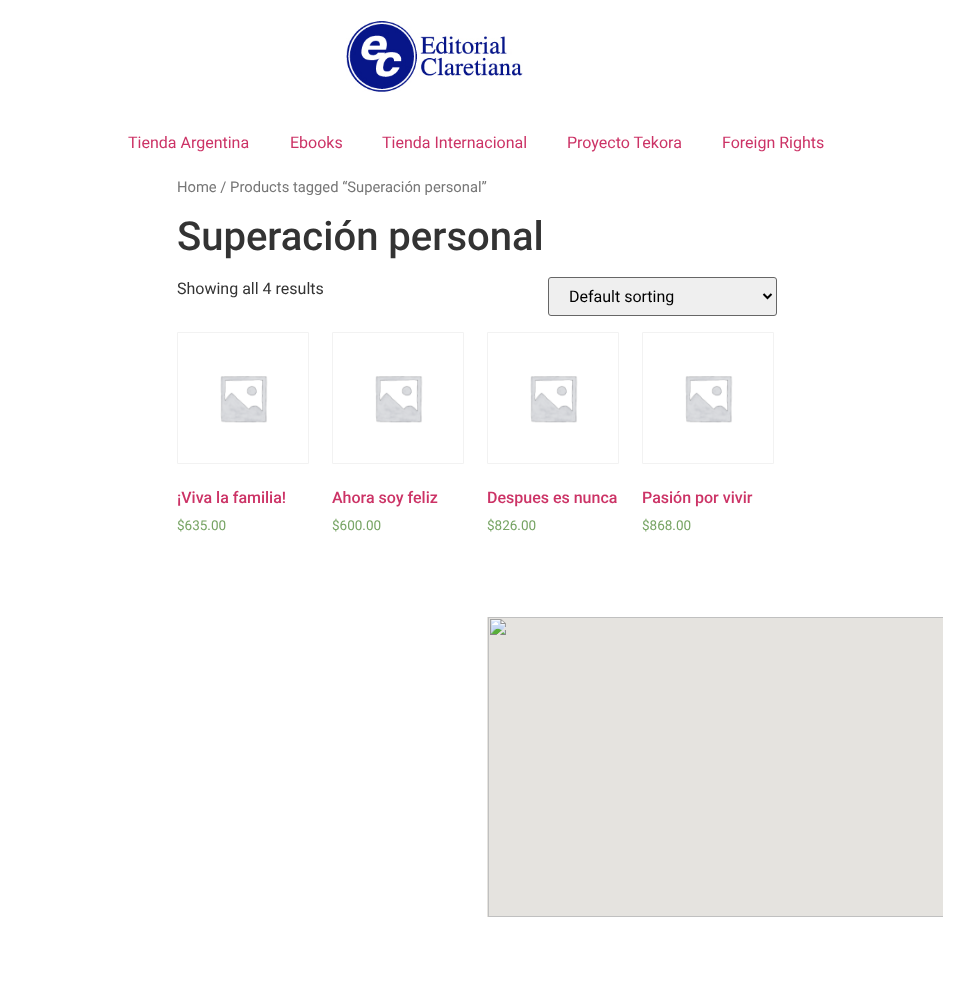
<svg xmlns="http://www.w3.org/2000/svg" width="953" height="998" viewBox="0 0 953 998">
  <rect width="100%" height="100%" fill="#fff"/>
  <image x="346" y="21" width="177" height="71" href="img/1.png"/>
  <rect x="548.5" y="277.5" width="228" height="38" rx="2.5" fill="#efefef" stroke="#666"/>
  <path d="M763.5 294L767.5 298L771.5 294" fill="none" stroke="#000" stroke-width="2"/>
  <path d="M177.5 332.5h131v131H177.5z" fill="none" stroke="#f2f2f2"/>
  <image x="220" y="376" width="48" height="47" href="img/2.png"/>
  <path d="M332.5 332.5h131v131H332.5z" fill="none" stroke="#f2f2f2"/>
  <image x="375" y="376" width="48" height="47" href="img/2.png"/>
  <path d="M487.5 332.5h131v131H487.5z" fill="none" stroke="#f2f2f2"/>
  <image x="530" y="376" width="48" height="47" href="img/3.png"/>
  <path d="M642.5 332.5h131v131H642.5z" fill="none" stroke="#f2f2f2"/>
  <image x="685" y="376" width="48" height="47" href="img/2.png"/>
  <image x="487" y="617" width="456" height="300" href="img/4.png"/>
  <g font-family="Roboto" font-size="16" fill="#c36">
    <text x="128" y="148">Tienda Argentina</text>
    <text x="290" y="148">Ebooks</text>
    <text x="382" y="148">Tienda Internacional</text>
    <text x="567" y="148">Proyecto Tekora</text>
    <text x="722" y="148">Foreign Rights</text>
  </g>
  <text x="177" y="192" font-family="Roboto" font-size="14.75" fill="#767676">Home / Products tagged “Superación personal”</text>
  <text x="177" y="250" font-family="Roboto" font-size="40" font-weight="500" fill="#333">Superación personal</text>
  <text x="177" y="294" font-family="Roboto" font-size="16" fill="#333">Showing all 4 results</text>
  <text x="569" y="302" font-family="Roboto" font-size="16" fill="#000">Default sorting</text>
  <text x="177" y="503" font-family="Roboto" font-size="16" font-weight="500" fill="#c36">¡Viva la familia!</text>
  <text x="177" y="530" font-family="Roboto" font-size="13.5" fill="#77a464">$635.00</text>
  <text x="332" y="503" font-family="Roboto" font-size="16" font-weight="500" fill="#c36">Ahora soy feliz</text>
  <text x="332" y="530" font-family="Roboto" font-size="13.5" fill="#77a464">$600.00</text>
  <text x="487" y="503" font-family="Roboto" font-size="16" font-weight="500" fill="#c36">Despues es nunca</text>
  <text x="487" y="530" font-family="Roboto" font-size="13.5" fill="#77a464">$826.00</text>
  <text x="642" y="503" font-family="Roboto" font-size="16" font-weight="500" fill="#c36">Pasión por vivir</text>
  <text x="642" y="530" font-family="Roboto" font-size="13.5" fill="#77a464">$868.00</text>
</svg>
